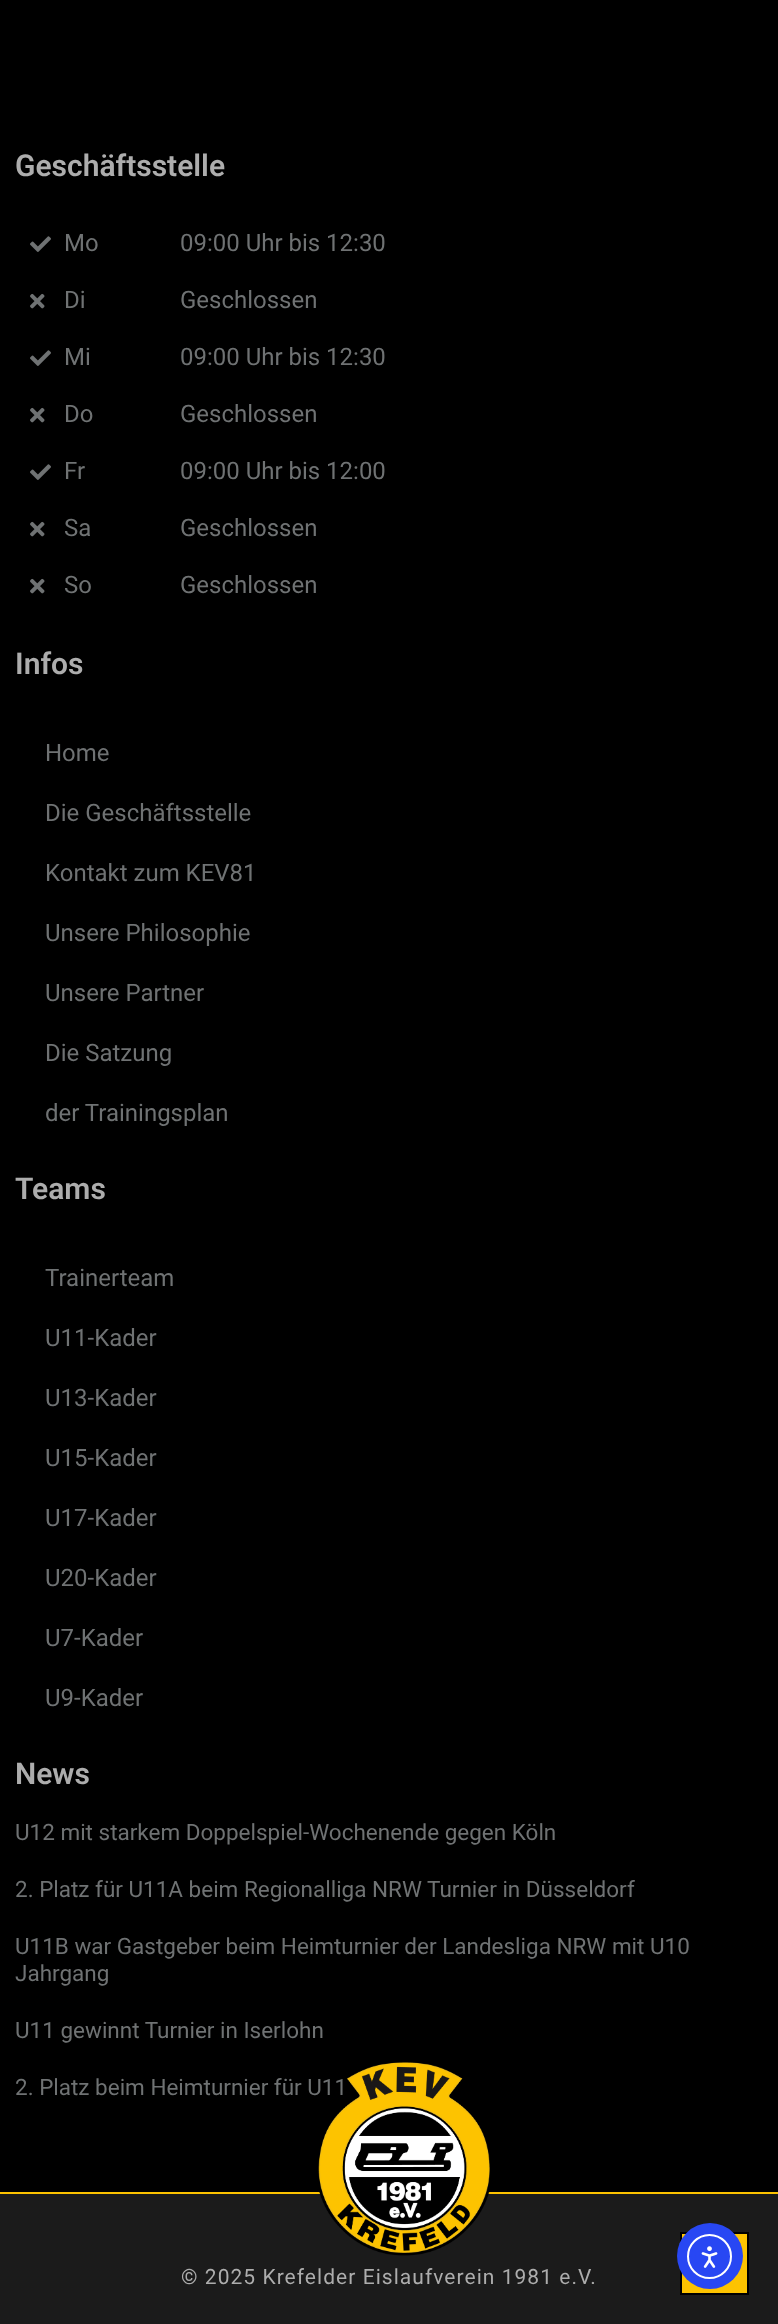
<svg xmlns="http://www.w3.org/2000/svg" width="778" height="2324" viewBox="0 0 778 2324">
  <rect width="100%" height="100%" fill="#000"/>
  <image x="30" y="236" width="21" height="16" href="img/1.png"/>
  <image x="30" y="293" width="15" height="16" href="img/2.png"/>
  <image x="30" y="350" width="21" height="16" href="img/1.png"/>
  <image x="30" y="407" width="15" height="16" href="img/2.png"/>
  <image x="30" y="464" width="21" height="16" href="img/1.png"/>
  <image x="30" y="521" width="15" height="16" href="img/2.png"/>
  <image x="30" y="578" width="15" height="16" href="img/2.png"/>
  <path d="M0 2194h778v130H0z" fill="#1b1b1b"/>
  <path d="M681 2233h67v61H681z" fill="#fdc300" stroke="#000" stroke-width="2"/>
  <path d="M0 2192h778v2H0z" fill="#fdc300"/>
  <circle cx="710" cy="2256" r="33" fill="#2847f3"/>
  <circle cx="709.5" cy="2256.5" r="21.5" fill="none" stroke="#fff" stroke-width="2"/>
  <image x="701" y="2246" width="17" height="22" href="img/4.png"/>
  <text x="15" y="176" font-family="Roboto" font-size="30" font-weight="600" fill="#adadad">Geschäftsstelle</text>
  <g font-family="Roboto" font-size="24" fill="#6f7273">
    <text x="64" y="251">Mo</text>
    <text x="64" y="308">Di</text>
    <text x="64" y="365">Mi</text>
    <text x="64" y="422">Do</text>
    <text x="64" y="479">Fr</text>
    <text x="64" y="536">Sa</text>
    <text x="64" y="593">So</text>
    <text x="180" y="251">09:00 Uhr bis 12:30</text>
    <text x="180" y="308">Geschlossen</text>
    <text x="180" y="365">09:00 Uhr bis 12:30</text>
    <text x="180" y="422">Geschlossen</text>
    <text x="180" y="479">09:00 Uhr bis 12:00</text>
    <text x="180" y="536">Geschlossen</text>
    <text x="180" y="593">Geschlossen</text>
  </g>
  <text x="15" y="674" font-family="Roboto" font-size="30" font-weight="600" fill="#adadad">Infos</text>
  <g font-family="Roboto" font-size="24" fill="#6f7273">
    <text x="45" y="761">Home</text>
    <text x="45" y="821">Die Geschäftsstelle</text>
    <text x="45" y="881">Kontakt zum KEV81</text>
    <text x="45" y="941">Unsere Philosophie</text>
    <text x="45" y="1001">Unsere Partner</text>
    <text x="45" y="1061">Die Satzung</text>
    <text x="45" y="1121">der Trainingsplan</text>
  </g>
  <text x="15" y="1199" font-family="Roboto" font-size="30" font-weight="600" fill="#adadad">Teams</text>
  <g font-family="Roboto" font-size="24" fill="#6f7273">
    <text x="45" y="1286">Trainerteam</text>
    <text x="45" y="1346">U11-Kader</text>
    <text x="45" y="1406">U13-Kader</text>
    <text x="45" y="1466">U15-Kader</text>
    <text x="45" y="1526">U17-Kader</text>
    <text x="45" y="1586">U20-Kader</text>
    <text x="45" y="1646">U7-Kader</text>
    <text x="45" y="1706">U9-Kader</text>
  </g>
  <text x="15" y="1784" font-family="Roboto" font-size="30" font-weight="600" fill="#adadad">News</text>
  <g font-family="Roboto" font-size="22.5" fill="#6f7273">
    <text x="15" y="1840">U12 mit starkem Doppelspiel-Wochenende gegen Köln</text>
    <text x="15" y="1897">2. Platz für U11A beim Regionalliga NRW Turnier in Düsseldorf</text>
    <text x="15" y="1954">U11B war Gastgeber beim Heimturnier der Landesliga NRW mit U10</text>
    <text x="15" y="1981">Jahrgang</text>
    <text x="15" y="2038">U11 gewinnt Turnier in Iserlohn</text>
    <text x="15" y="2095">2. Platz beim Heimturnier für U11</text>
  </g>
  <image x="318" y="2062" width="172" height="194" href="img/3.png"/>
  <text x="181" y="2284" font-family="Roboto" font-size="21" letter-spacing="1.05" fill="#adadad">© 2025 Krefelder Eislaufverein 1981 e.V.</text>
</svg>
